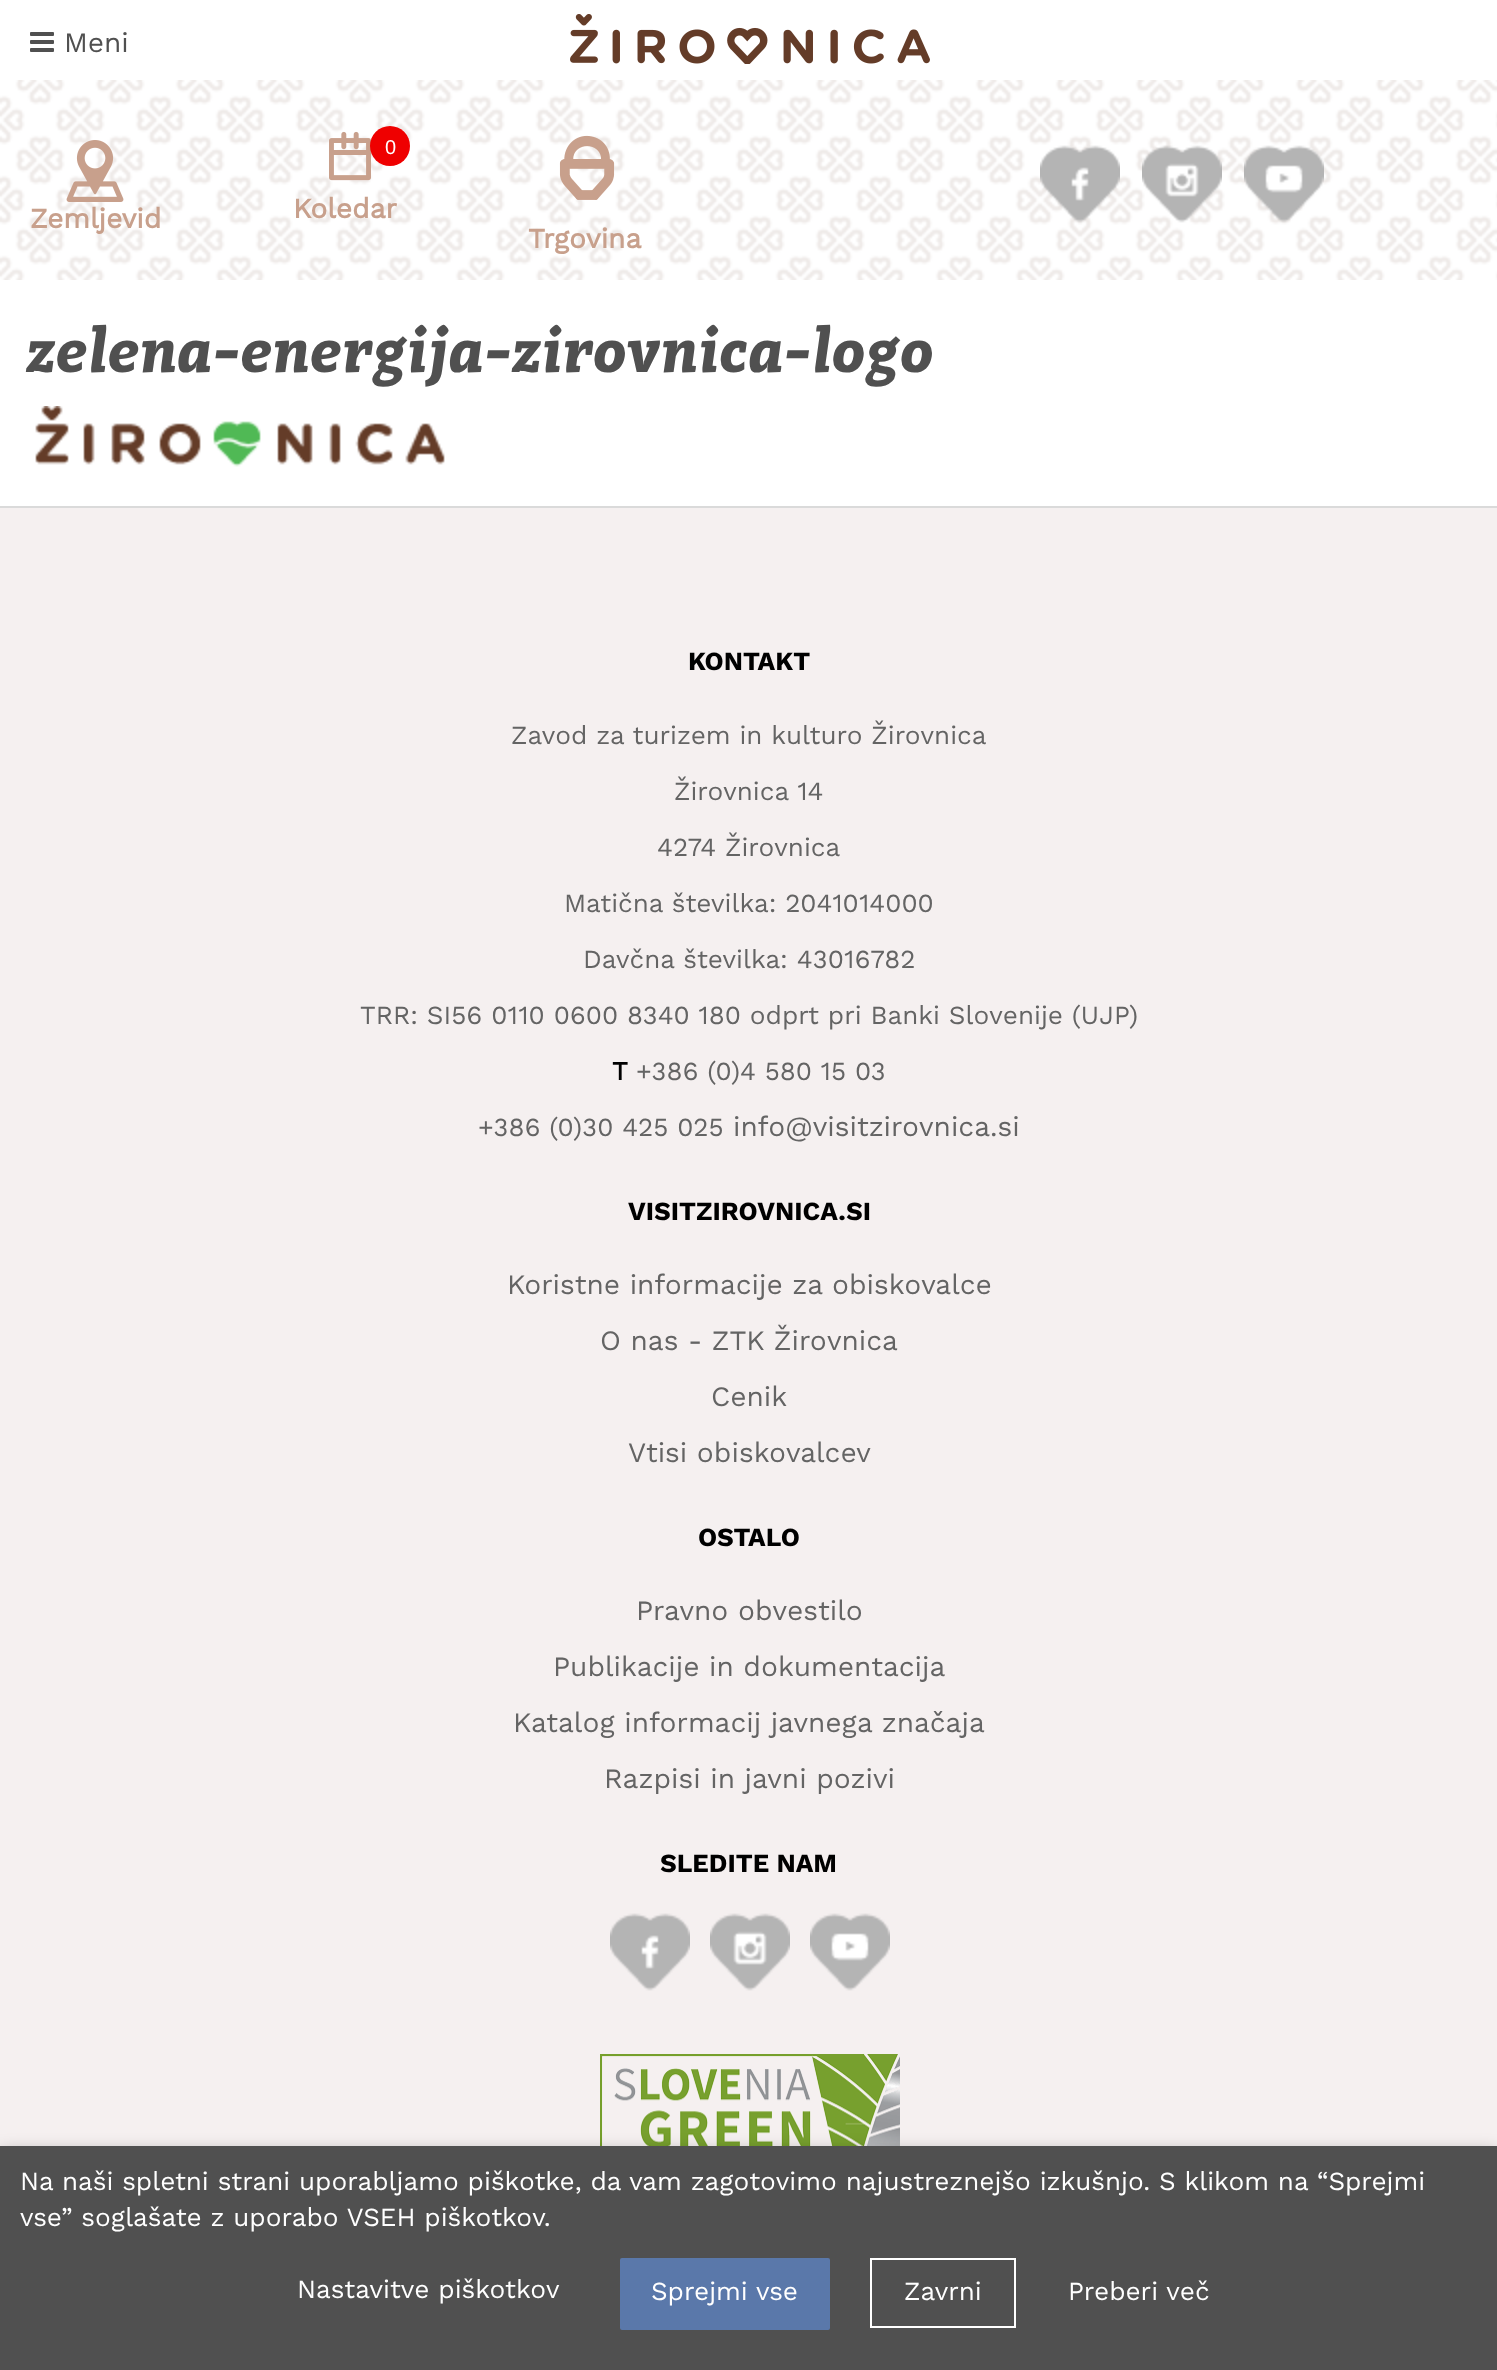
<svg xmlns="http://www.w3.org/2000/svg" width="1497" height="2370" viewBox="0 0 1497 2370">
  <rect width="100%" height="100%" fill="#fff"/>
  <image x="30" y="32" width="24" height="20" href="img/1.png"/>
  <image x="570" y="14" width="360" height="50" href="img/2.png"/>
  <image x="0" y="80" width="1497" height="200" href="img/3.png"/>
  <image x="66" y="140" width="58" height="62" href="img/4.png"/>
  <image x="329" y="131" width="42" height="50" href="img/5.png"/>
  <circle cx="390" cy="146" r="20" fill="#ef0000"/>
  <image x="559" y="135" width="56" height="65" href="img/6.png"/>
  <image x="1040" y="145" width="80" height="78" href="img/7.png"/>
  <image x="1142" y="145" width="80" height="78" href="img/8.png"/>
  <image x="1244" y="145" width="80" height="78" href="img/9.png"/>
  <image x="35" y="406" width="410" height="61" href="img/10.png"/>
  <path d="M0 506h1497v2H0z" fill="#dadada"/>
  <path d="M0 508h1497v1638H0z" fill="#f5f0f0"/>
  <image x="610" y="1913" width="80" height="78" href="img/11.png"/>
  <image x="710" y="1913" width="80" height="78" href="img/12.png"/>
  <image x="810" y="1913" width="80" height="78" href="img/13.png"/>
  <image x="600" y="2054" width="300" height="92" href="img/14.png"/>
  <path d="M0 2156h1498v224H0z" fill="#00000080" filter="blur(10px)"/>
  <path d="M0 2146h1497v224H0z" fill="#505050"/>
  <rect x="620" y="2258" width="210" height="72" rx="2" fill="#5a78aa"/>
  <path d="M871 2259h144v68H871z" fill="none" stroke="#fff" stroke-width="2"/>
  <text x="64" y="52" font-family="Work Sans" font-size="28" fill="#505050">Meni</text>
  <text x="30" y="228" font-family="'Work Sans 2'" font-size="28" font-weight="bold" fill="#c8a08c">Zemljevid</text>
  <text x="385" y="154" font-family="Liberation Sans" font-size="20" fill="#fff">0</text>
  <g font-family="'Work Sans 2'" font-size="28" font-weight="bold" fill="#c8a08c">
    <text x="293" y="218">Koledar</text>
    <text x="528" y="248">Trgovina</text>
  </g>
  <text x="30" y="372" font-family="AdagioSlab" font-size="60" font-weight="bold" font-style="italic" fill="#505050">zelena-energija-zirovnica-logo</text>
  <text x="688" y="670" font-family="Work Sans" font-size="26" font-weight="bold" fill="#000">KONTAKT</text>
  <g font-family="Work Sans" font-size="26" fill="#646464">
    <text x="511" y="744">Zavod za turizem in kulturo Žirovnica</text>
    <text x="674" y="800">Žirovnica 14</text>
    <text x="657" y="856">4274 Žirovnica</text>
    <text x="564" y="912">Matična številka: 2041014000</text>
    <text x="583" y="968">Davčna številka: 43016782</text>
    <text x="360" y="1024">TRR: SI56 0110 0600 8340 180 odprt pri Banki Slovenije (UJP)</text>
  </g>
  <text x="612" y="1080" font-family="'Work Sans 2'" font-size="26" font-weight="bold" fill="#000">T</text>
  <g font-family="Work Sans" font-size="26" fill="#646464">
    <text x="636" y="1080">+386 (0)4 580 15 03</text>
    <text x="478" y="1136">+386 (0)30 425 025</text>
  </g>
  <text x="733" y="1136" font-family="Work Sans" font-size="28" fill="#646464">info@visitzirovnica.si</text>
  <text x="628" y="1220" font-family="Work Sans" font-size="26" font-weight="bold" fill="#000">VISITZIROVNICA.SI</text>
  <g font-family="Work Sans" font-size="28" fill="#646464">
    <text x="507" y="1294">Koristne informacije za obiskovalce</text>
    <text x="600" y="1350">O nas - ZTK Žirovnica</text>
    <text x="711" y="1406">Cenik</text>
    <text x="628" y="1462">Vtisi obiskovalcev</text>
  </g>
  <text x="698" y="1546" font-family="Work Sans" font-size="26" font-weight="bold" fill="#000">OSTALO</text>
  <g font-family="Work Sans" font-size="28" fill="#646464">
    <text x="636" y="1620">Pravno obvestilo</text>
    <text x="553" y="1676">Publikacije in dokumentacija</text>
    <text x="513" y="1732">Katalog informacij javnega značaja</text>
    <text x="604" y="1788">Razpisi in javni pozivi</text>
  </g>
  <text x="660" y="1872" font-family="Work Sans" font-size="26" font-weight="bold" fill="#000">SLEDITE NAM</text>
  <g font-family="Work Sans" font-size="26" fill="#fff">
    <text x="20" y="2190">Na naši spletni strani uporabljamo piškotke, da vam zagotovimo najustreznejšo izkušnjo. S klikom na “Sprejmi</text>
    <text x="20" y="2226">vse” soglašate z uporabo VSEH piškotkov.</text>
    <text x="297" y="2298">Nastavitve piškotkov</text>
    <text x="651" y="2300">Sprejmi vse</text>
    <text x="904" y="2300">Zavrni</text>
    <text x="1068" y="2300">Preberi več</text>
  </g>
</svg>
